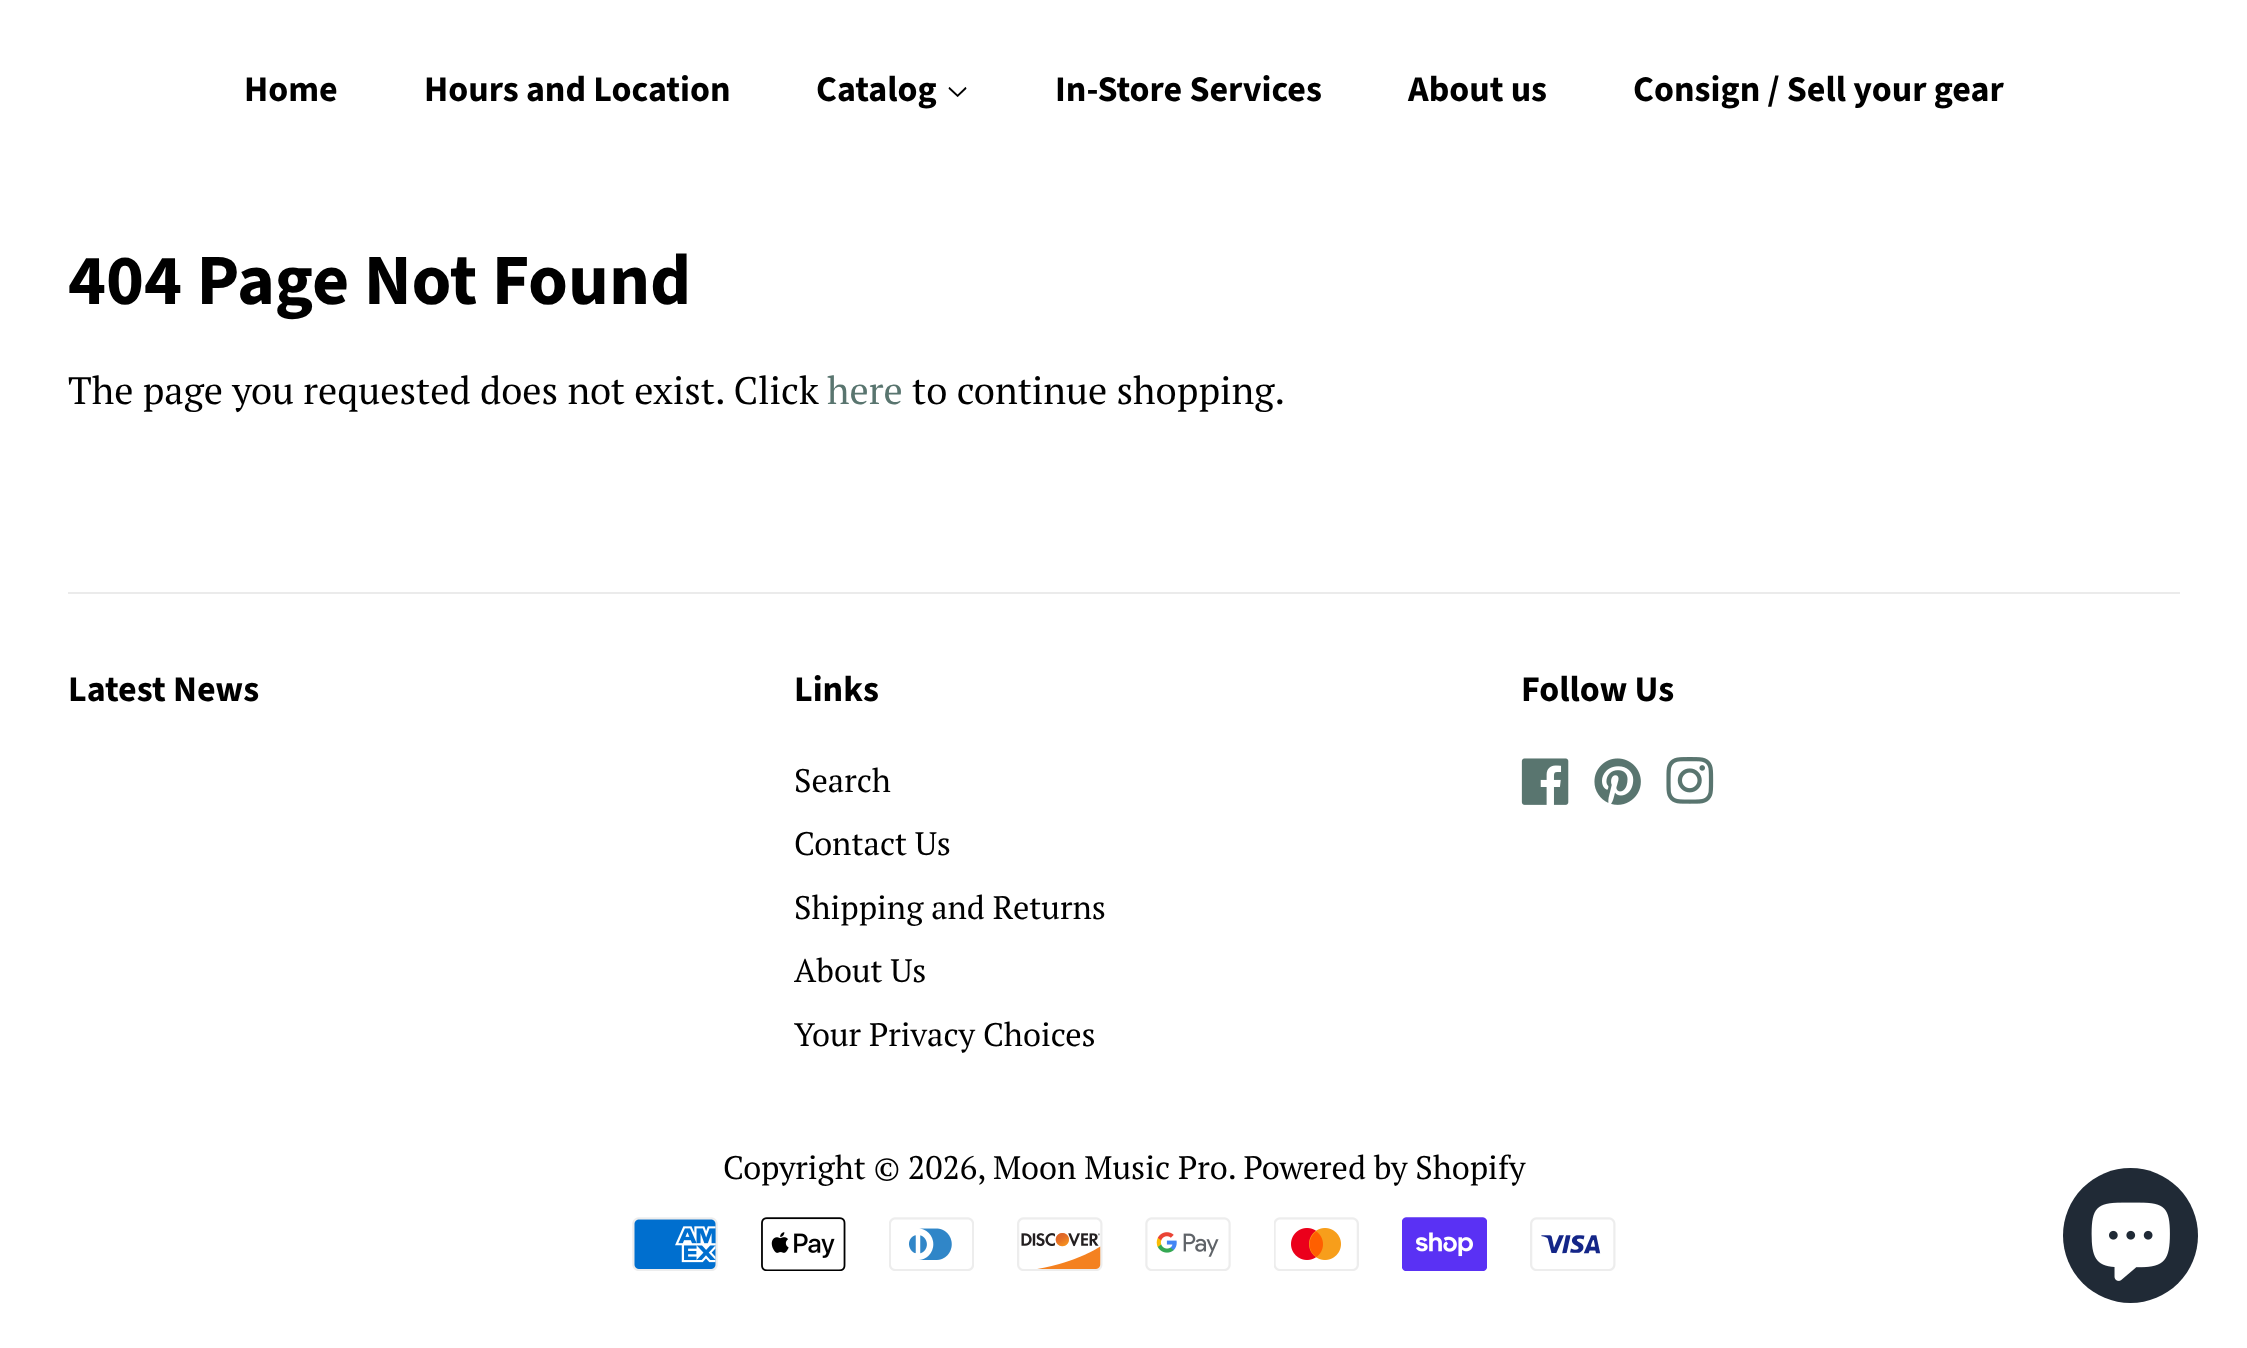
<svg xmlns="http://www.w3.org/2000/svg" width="2247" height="1348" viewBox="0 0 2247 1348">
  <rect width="100%" height="100%" fill="#fff"/>
  <image x="948" y="87" width="19" height="10" href="img/1.png"/>
  <path d="M68 592h2112v2H68z" fill="#ebebeb"/>
  <image x="1521" y="758" width="48" height="47" href="img/2.png"/>
  <image x="1594" y="758" width="47" height="47" href="img/3.png"/>
  <image x="1666" y="757" width="48" height="47" href="img/4.png"/>
  <image x="632" y="1217" width="86" height="54" href="img/5.png"/>
  <image x="761" y="1217" width="85" height="54" href="img/6.png"/>
  <image x="889" y="1217" width="85" height="54" href="img/7.png"/>
  <image x="1017" y="1217" width="86" height="54" href="img/8.png"/>
  <image x="1145" y="1217" width="86" height="54" href="img/9.png"/>
  <image x="1274" y="1217" width="85" height="54" href="img/10.png"/>
  <image x="1402" y="1217" width="85" height="54" href="img/11.png"/>
  <image x="1530" y="1217" width="86" height="54" href="img/12.png"/>
  <circle cx="2130.5" cy="1235.5" r="67.5" fill="#202a36"/>
  <image x="2091" y="1202" width="79" height="79" href="img/13.png"/>
  <g font-family="Source Sans Pro" font-size="36" font-weight="bold" fill="#000">
    <text x="244" y="101">Home</text>
    <text x="424" y="101">Hours and Location</text>
    <text x="816" y="101">Catalog</text>
    <text x="1055" y="101">In-Store Services</text>
    <text x="1408" y="101">About us</text>
    <text x="1633" y="101">Consign / Sell your gear</text>
  </g>
  <text x="68" y="304" font-family="Source Sans Pro" font-size="72" font-weight="bold" fill="#000">404 Page Not Found</text>
  <text x="68" y="404" font-family="PT Serif" font-size="38.25" fill="#000">The page you requested does not exist. Click</text>
  <text x="827" y="404" font-family="PT Serif" font-size="38.25" fill="#59756f">here</text>
  <text x="912" y="404" font-family="PT Serif" font-size="38.25" fill="#000">to continue shopping.</text>
  <g font-family="Source Sans Pro" font-size="36" font-weight="bold" fill="#000">
    <text x="68" y="701">Latest News</text>
    <text x="794" y="701">Links</text>
  </g>
  <g font-family="PT Serif" font-size="32.5" fill="#000">
    <text x="794" y="792">Search</text>
    <text x="794" y="855">Contact Us</text>
    <text x="794" y="919">Shipping and Returns</text>
    <text x="794" y="982">About Us</text>
    <text x="794" y="1046">Your Privacy Choices</text>
  </g>
  <text x="1521" y="701" font-family="Source Sans Pro" font-size="36" font-weight="bold" fill="#000">Follow Us</text>
  <text x="723" y="1179" font-family="PT Serif" font-size="32.5" fill="#000">Copyright © 2026, Moon Music Pro. Powered by Shopify</text>
</svg>
